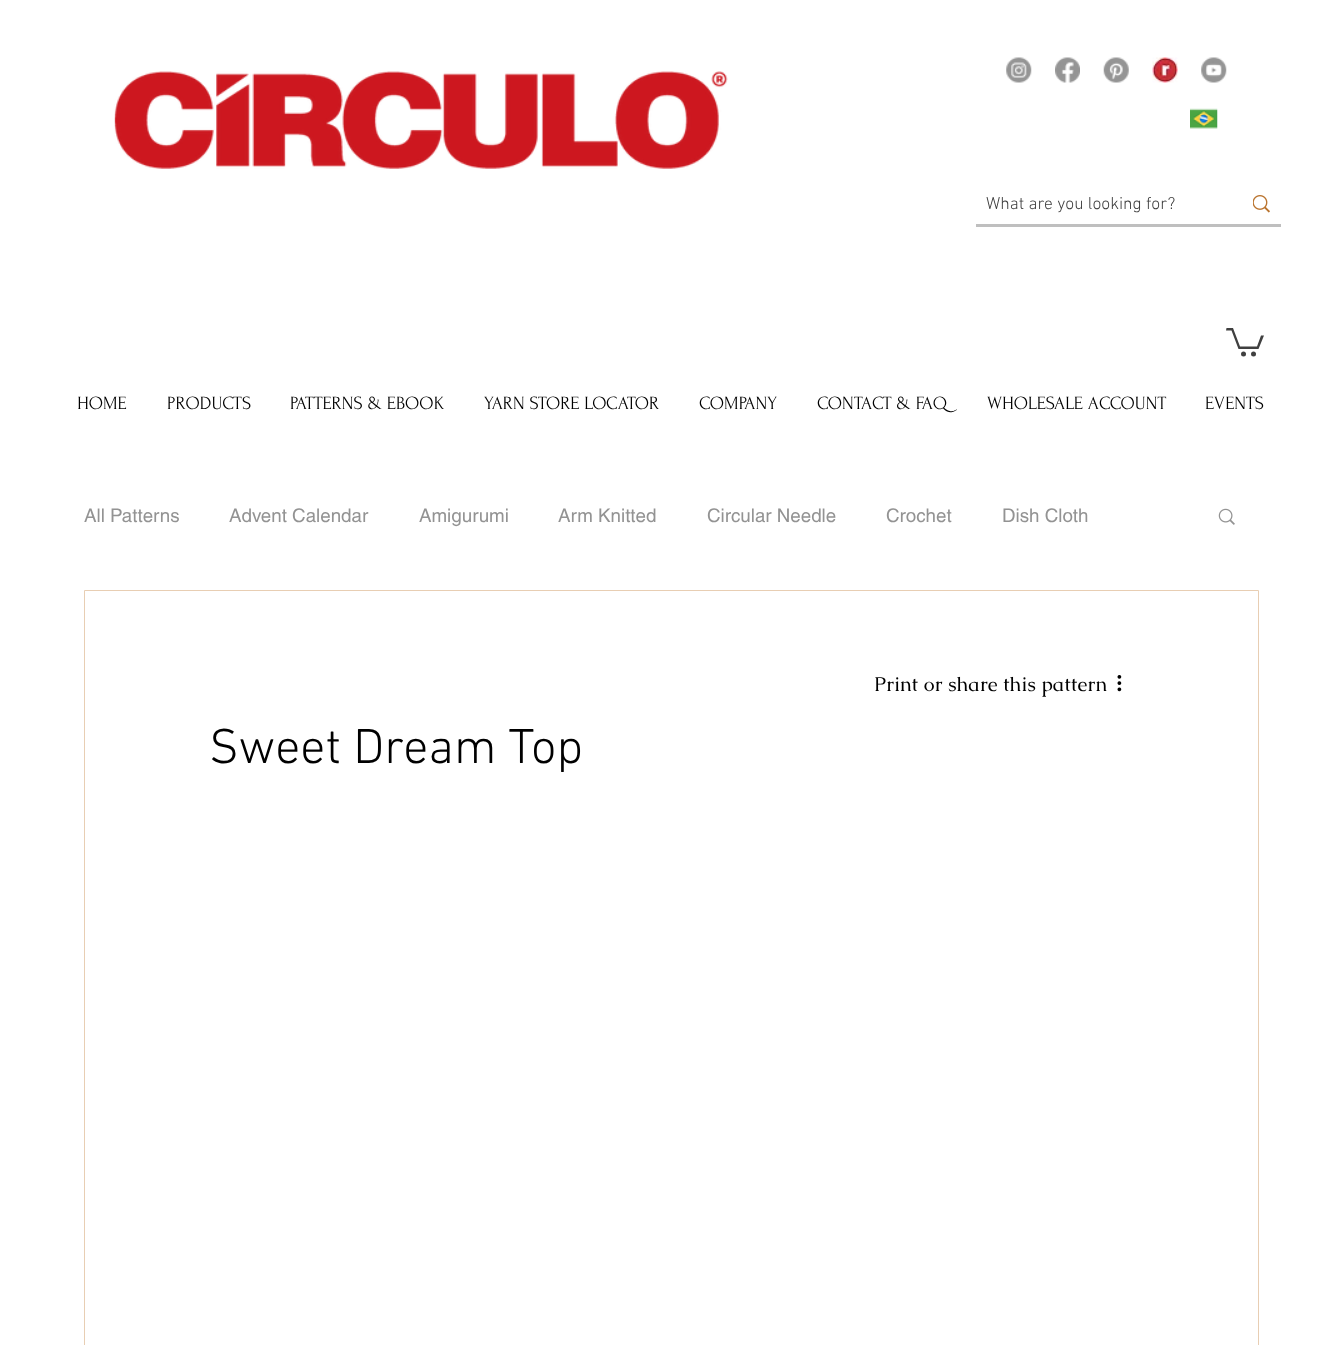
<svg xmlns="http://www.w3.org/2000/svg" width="1342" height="1345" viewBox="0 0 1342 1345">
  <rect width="100%" height="100%" fill="#fff"/>
  <image x="114" y="71" width="614" height="98" href="img/1.png"/>
  <image x="1006" y="57" width="26" height="26" href="img/2.png"/>
  <image x="1055" y="57" width="25" height="26" href="img/3.png"/>
  <image x="1103" y="57" width="26" height="26" href="img/4.png"/>
  <image x="1152" y="57" width="26" height="26" href="img/5.png"/>
  <image x="1201" y="57" width="26" height="26" href="img/6.png"/>
  <image x="1190" y="108" width="28" height="21" href="img/7.png"/>
  <path d="M976 224h305v3H976z" fill="#bfbfbf"/>
  <image x="1253" y="195" width="17" height="18" href="img/8.png"/>
  <path d="M1264 335.5L1258.5 349H1238.5L1231.5 330.5H1226L1226.5 328H1233L1240 346.5H1257L1261 335.5" fill="#404040"/>
  <circle cx="1253.5" cy="354" r="2.5" fill="#404040"/>
  <circle cx="1243.5" cy="354" r="2.5" fill="#404040"/>
  <image x="1218" y="508" width="17" height="17" href="img/9.png"/>
  <path d="M84.5 590.5h1174v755H84.5z" fill="none" stroke="#e8ceb3"/>
  <image x="1117" y="675" width="5" height="17" href="img/10.png"/>
  <text x="986" y="209" font-family="'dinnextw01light'" font-size="17.5" font-weight="300" fill="#404040">What are you looking for?</text>
  <g font-family="Forum" font-size="18.75" fill="#000">
    <text x="77" y="409">HOME</text>
    <text x="167" y="409">PRODUCTS</text>
    <text x="290" y="409">PATTERNS &amp; EBOOK</text>
    <text x="484" y="409">YARN STORE LOCATOR</text>
    <text x="699" y="409">COMPANY</text>
    <text x="817" y="409">CONTACT &amp; FAQ</text>
    <text x="987" y="409">WHOLESALE ACCOUNT</text>
    <text x="1205" y="409">EVENTS</text>
  </g>
  <g font-family="helvetica" font-size="18.75" fill="#939393">
    <text x="84" y="522">All Patterns</text>
    <text x="229" y="522">Advent Calendar</text>
    <text x="419" y="522">Amigurumi</text>
    <text x="558" y="522">Arm Knitted</text>
    <text x="707" y="522">Circular Needle</text>
    <text x="886" y="522">Crochet</text>
    <text x="1002" y="522">Dish Cloth</text>
  </g>
  <text x="209" y="763" font-family="'dinnextw01light'" font-size="50" font-weight="300" fill="#000">Sweet Dream Top</text>
  <text x="874" y="691" font-family="Caudex" font-size="20" fill="#000">Print or share this pattern</text>
</svg>
